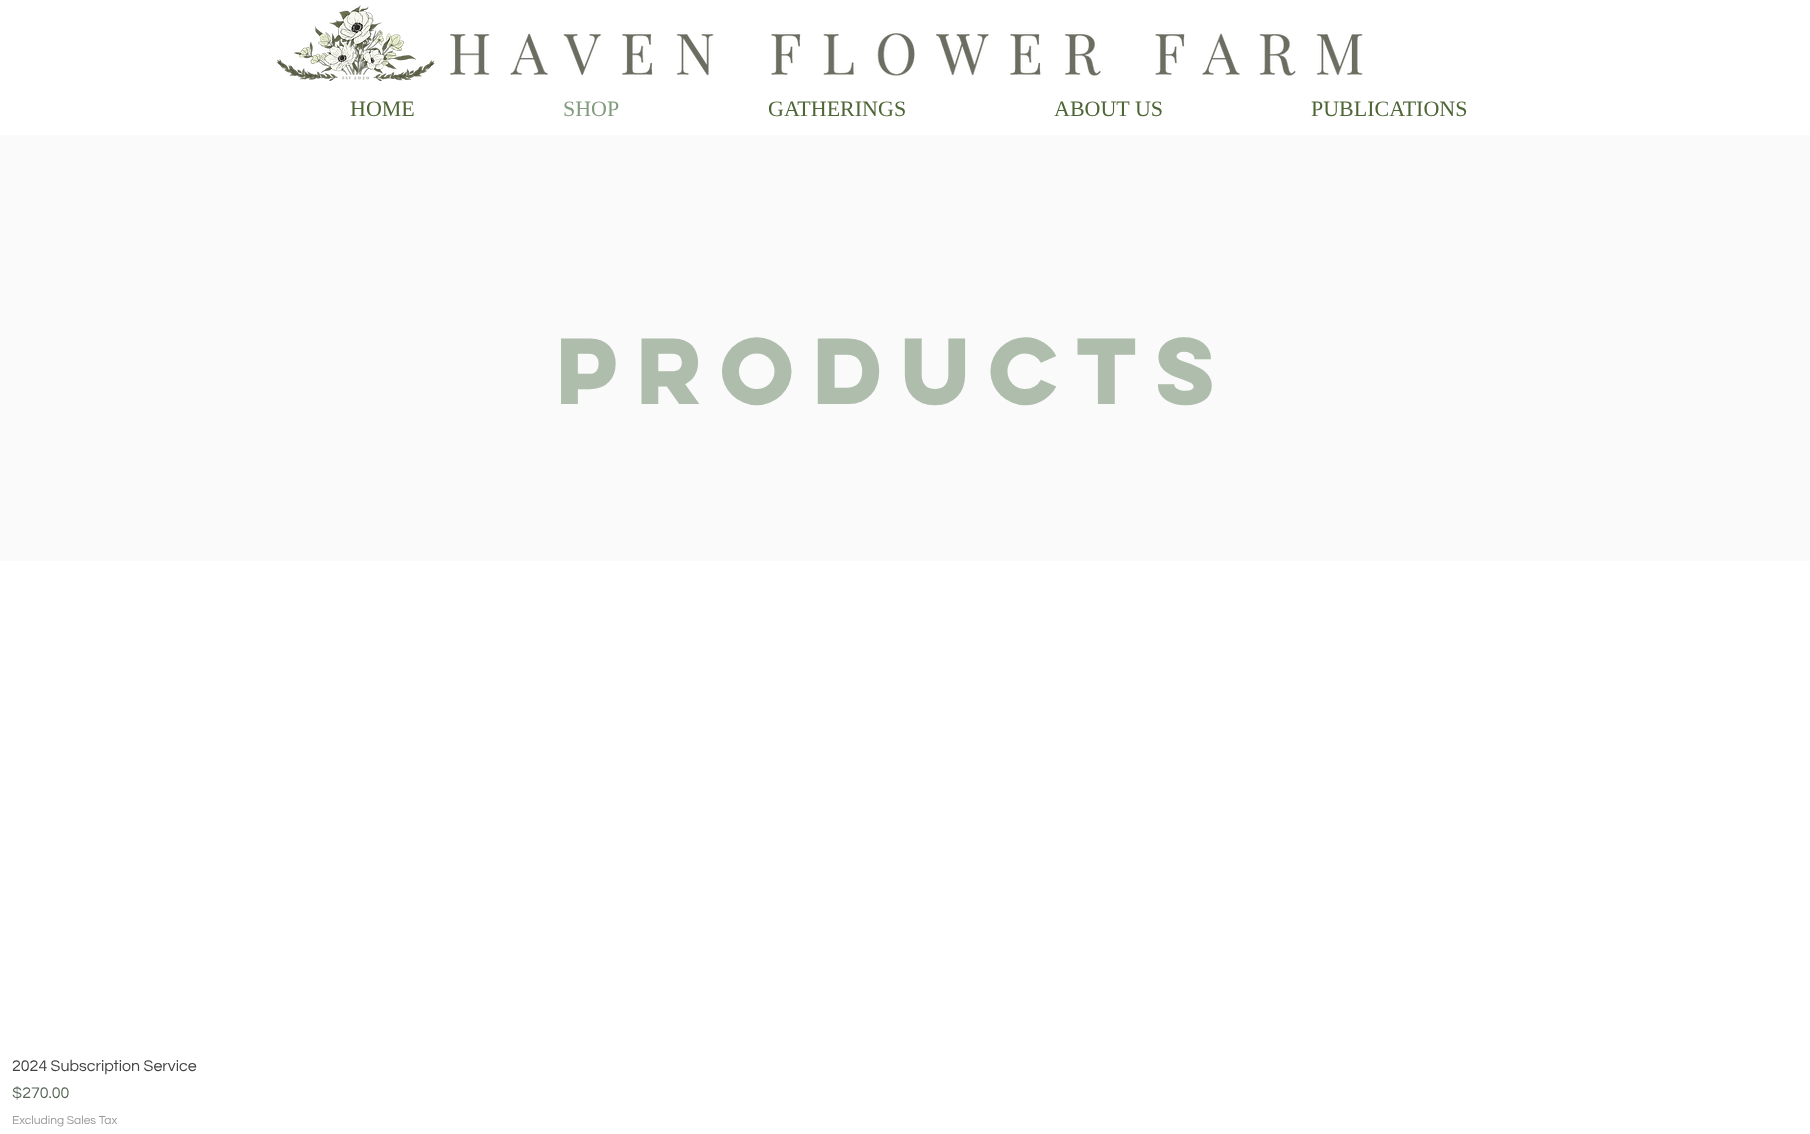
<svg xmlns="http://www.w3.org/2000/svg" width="1810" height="1134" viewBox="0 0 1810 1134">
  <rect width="100%" height="100%" fill="#fff"/>
  <image x="276" y="5" width="159" height="76" href="img/1.png"/>
  <image x="450" y="31" width="913" height="45" href="img/2.png"/>
  <path d="M0 135h1810v426H0z" fill="#fafafa"/>
  <text x="350" y="116" font-family="Liberation Serif" font-size="22" fill="#4e6636">HOME</text>
  <text x="563" y="116" font-family="Liberation Serif" font-size="22" fill="#839c80">SHOP</text>
  <g font-family="Liberation Serif" font-size="22" fill="#4e6636">
    <text x="768" y="116">GATHERINGS</text>
    <text x="1054" y="116">ABOUT US</text>
    <text x="1311" y="116">PUBLICATIONS</text>
  </g>
  <text x="556" y="404" font-family="'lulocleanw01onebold'" font-size="84" font-weight="bold" fill="#aebdac">Products</text>
  <text x="12" y="1071" font-family="Questrial" font-size="16" fill="#424242">2024 Subscription Service</text>
  <text x="12" y="1098" font-family="Questrial" font-size="16" fill="#576855">$270.00</text>
  <text x="12" y="1124" font-family="Questrial" font-size="12" fill="#999997">Excluding Sales Tax</text>
</svg>
